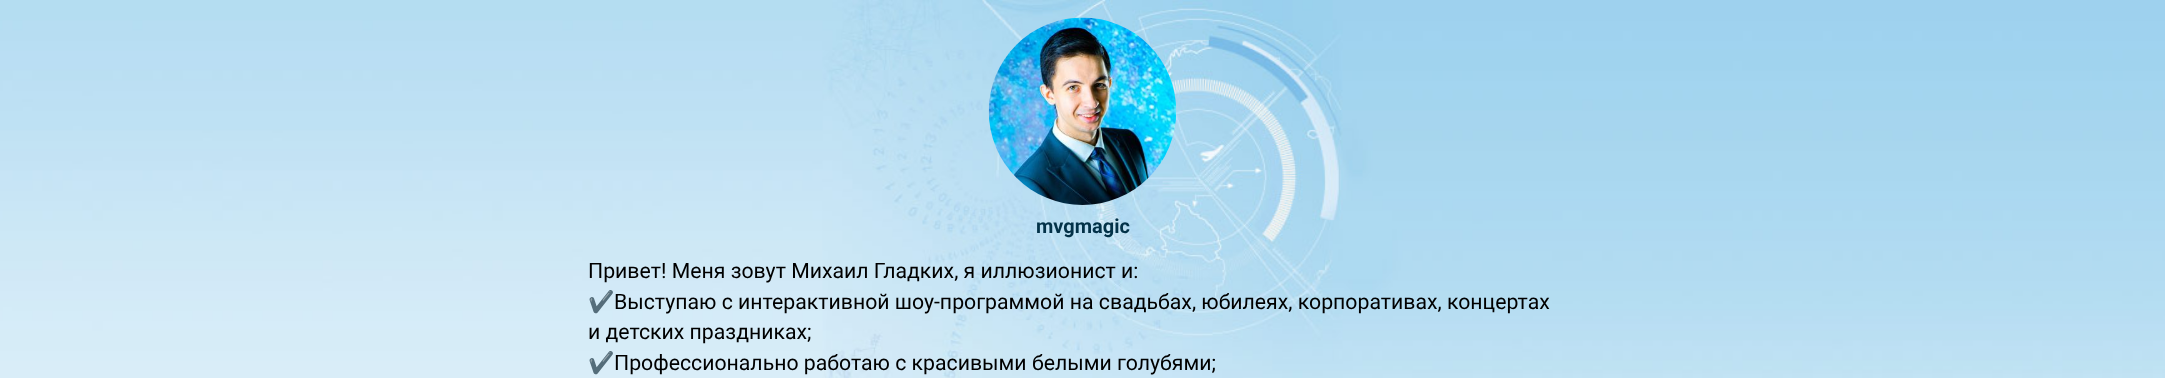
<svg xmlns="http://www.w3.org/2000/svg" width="2165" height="378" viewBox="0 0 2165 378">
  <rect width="100%" height="100%" fill="#fff"/>
  <image x="0" y="0" width="2165" height="378" href="img/1.png"/>
  <image x="988" y="17" width="189" height="188" href="img/2.png"/>
  <text x="1036" y="233" font-family="Roboto" font-size="20" font-weight="bold" fill="#033248">mvgmagic</text>
  <text x="588" y="278" font-family="Roboto" font-size="21.25" fill="#000">Привет! Меня зовут Михаил Гладких, я иллюзионист и:</text>
  <text x="588" y="309" font-family="Noto Color Emoji" font-size="21.25" fill="#000">✔️</text>
  <g font-family="Roboto" font-size="21.25" fill="#000">
    <text x="614" y="309">Выступаю с интерактивной шоу-программой на свадьбах, юбилеях, корпоративах, концертах</text>
    <text x="588" y="339">и детских праздниках;</text>
  </g>
  <text x="588" y="370" font-family="Noto Color Emoji" font-size="21.25" fill="#000">✔️</text>
  <text x="614" y="370" font-family="Roboto" font-size="21.25" fill="#000">Профессионально работаю с красивыми белыми голубями;</text>
</svg>
